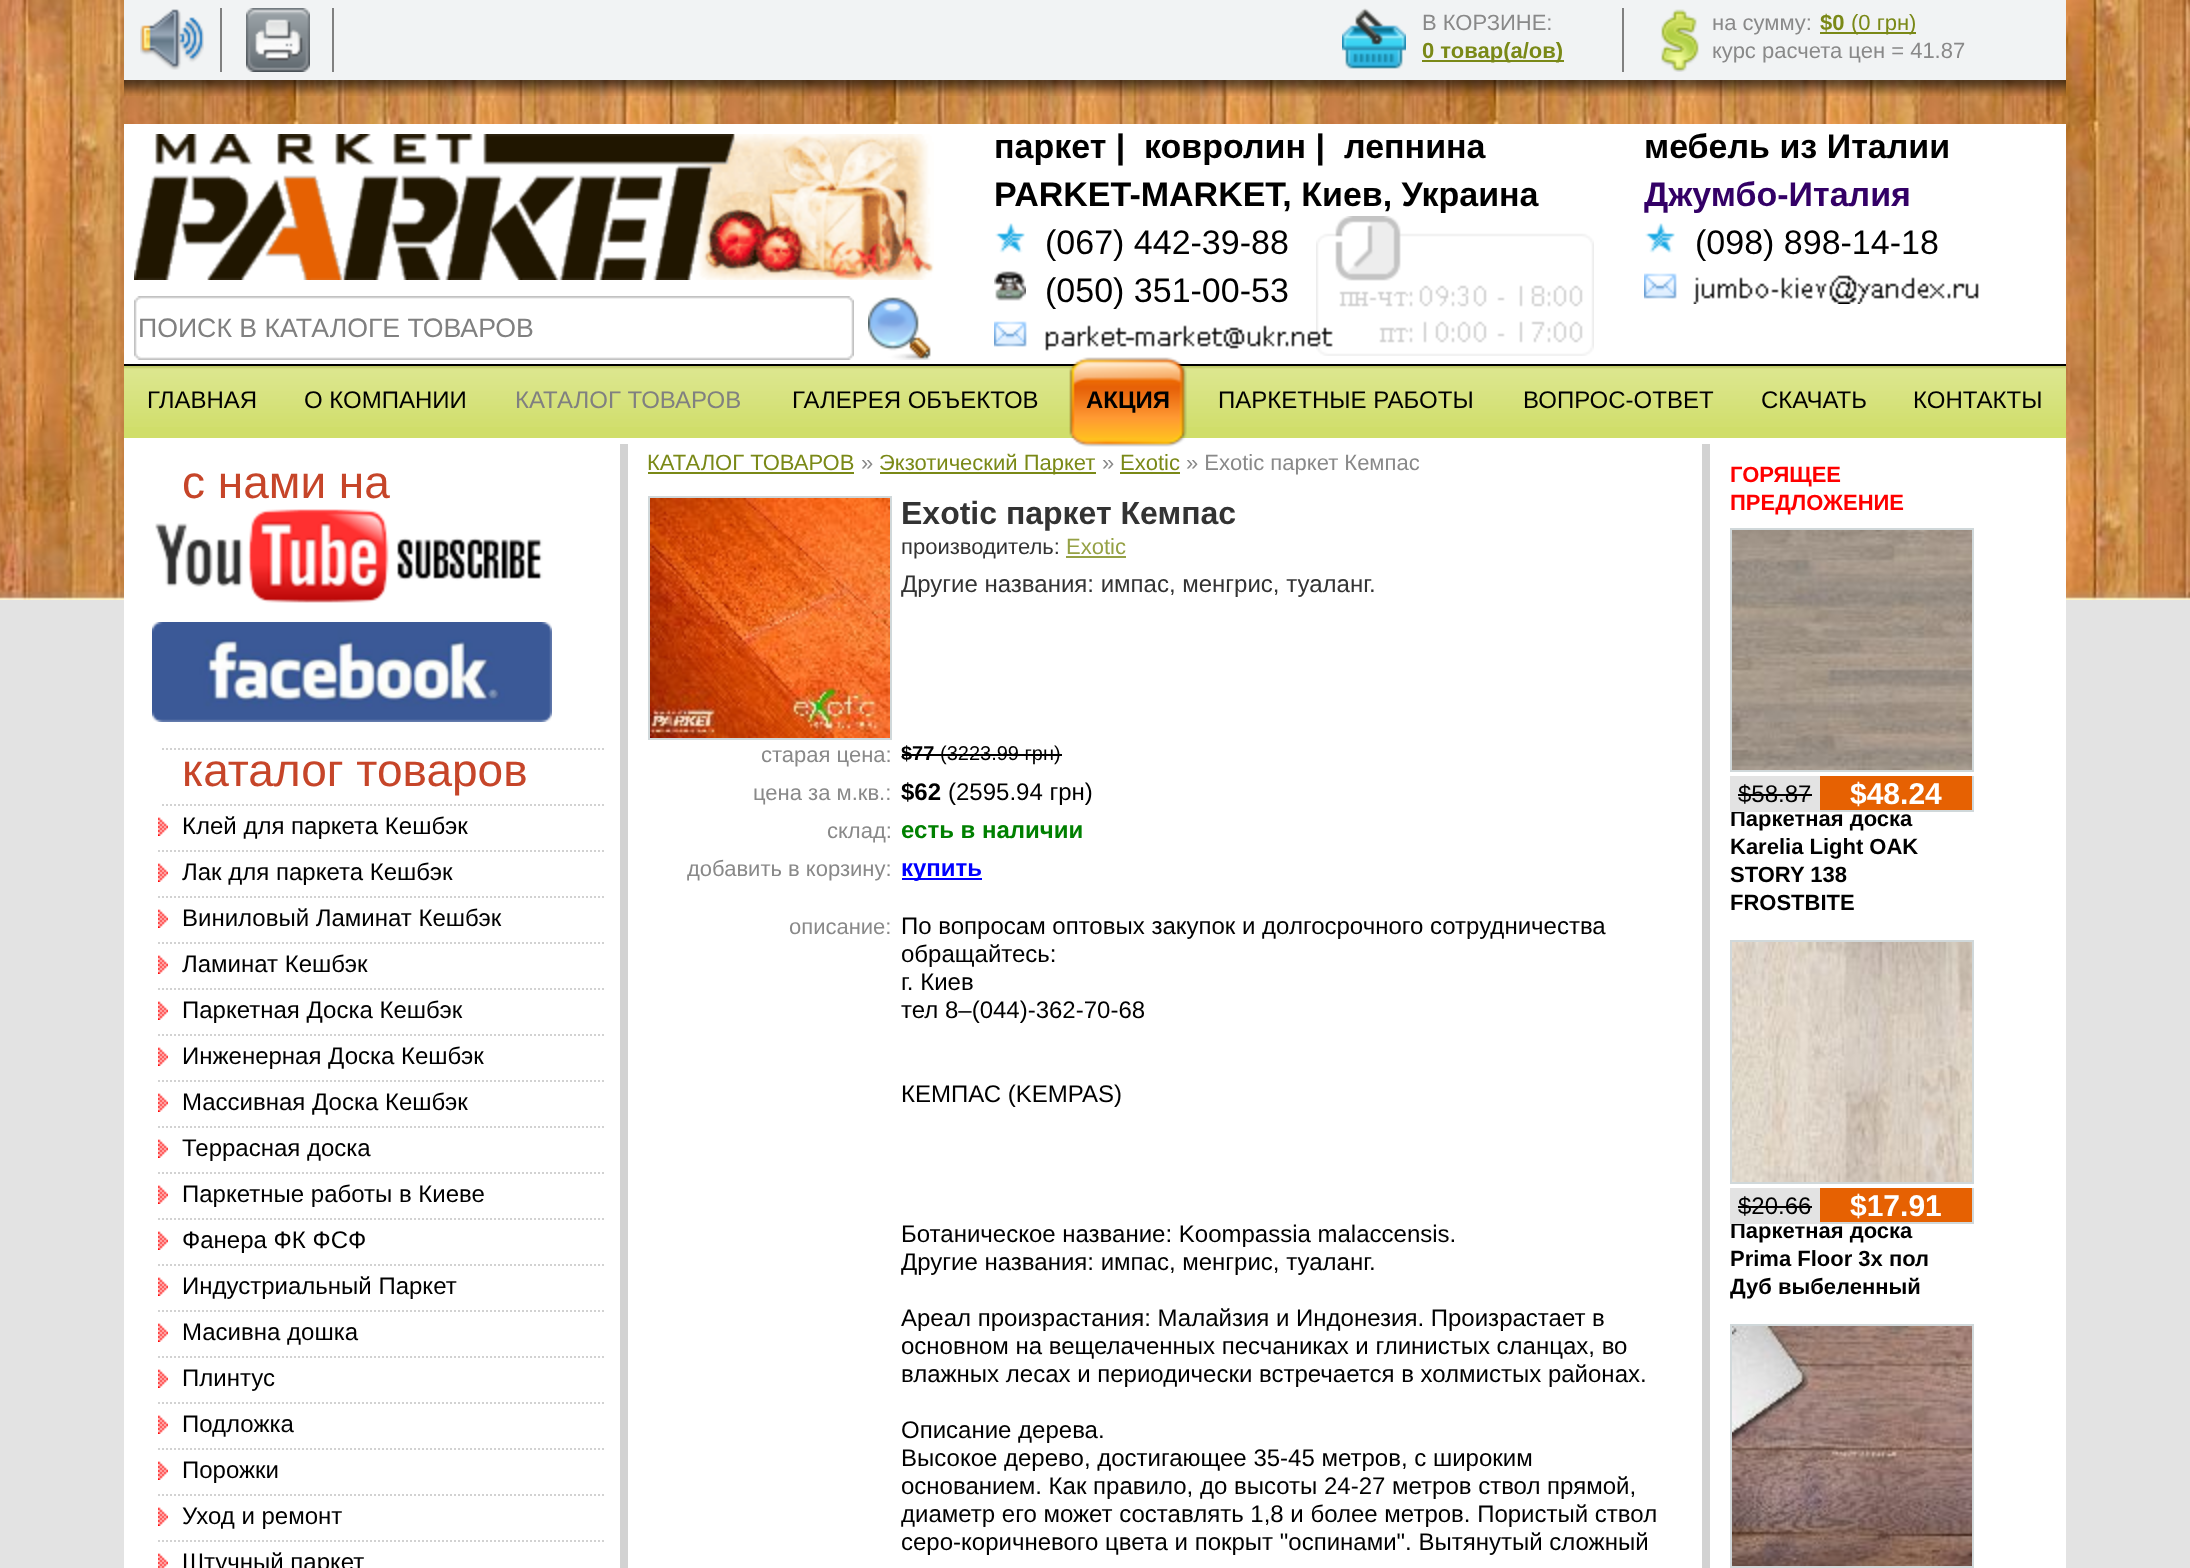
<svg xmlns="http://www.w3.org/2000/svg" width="2190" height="1568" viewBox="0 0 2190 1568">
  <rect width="100%" height="100%" fill="#e3e3e3"/>
  <image x="0" y="0" width="2190" height="600" href="img/1.png"/>
  <path d="M124 0h1942v80H124z" fill="#f1f3f4"/>
  <path d="M220 8h2v64H220z" fill="#808080"/>
  <image x="140" y="9" width="64" height="61" href="img/2.png"/>
  <path d="M332 8h2v64H332z" fill="#808080"/>
  <image x="246" y="8" width="64" height="64" href="img/3.png"/>
  <path d="M1622 8h2v64H1622z" fill="#808080"/>
  <image x="1342" y="8" width="64" height="61" href="img/4.png"/>
  <path d="M1820 32h96v2H1820z" fill="#7a8917"/>
  <path d="M1422 60h142v2H1422z" fill="#7a8917"/>
  <image x="1661" y="9" width="38" height="63" href="img/5.png"/>
  <image x="124" y="80" width="1942" height="16" href="img/6.png"/>
  <path d="M124 124h1942v1444H124z" fill="#fff"/>
  <path d="M124 364h1942v2H124z" fill="#000"/>
  <image x="1316" y="216" width="278" height="140" href="img/7.png"/>
  <image x="995" y="223" width="30" height="30" href="img/8.png"/>
  <image x="994" y="271" width="32" height="30" href="img/9.png"/>
  <image x="994" y="321" width="339" height="30" href="img/10.png"/>
  <image x="1645" y="223" width="30" height="30" href="img/8.png"/>
  <image x="1644" y="273" width="335" height="31" href="img/11.png"/>
  <image x="134" y="134" width="800" height="146" href="img/12.png"/>
  <image x="134" y="296" width="720" height="64" href="img/13.png"/>
  <path d="M138 300h712v56H138z" fill="#fff"/>
  <image x="868" y="297" width="63" height="63" href="img/14.png"/>
  <path d="M124 427h1942v11H124z" fill="#d0de6a"/>
  <image x="124" y="366" width="1942" height="61" href="img/15.png"/>
  <image x="1069" y="357" width="118" height="90" href="img/16.png"/>
  <path d="M620 444h8v1124H620z" fill="#d2d2d2"/>
  <path d="M162 749H606" fill="none" stroke="#d2d2d2" stroke-width="2" stroke-dasharray="2 2"/>
  <image x="155" y="509" width="388" height="94" href="img/17.png"/>
  <image x="152" y="622" width="400" height="100" href="img/18.png"/>
  <path d="M162 805H606" fill="none" stroke="#d2d2d2" stroke-width="2" stroke-dasharray="2 2"/>
  <image x="158" y="817" width="10" height="19" href="img/19.png"/>
  <path d="M158 851H606" fill="none" stroke="#d2d2d2" stroke-width="2" stroke-dasharray="2 2"/>
  <image x="158" y="863" width="10" height="19" href="img/19.png"/>
  <path d="M158 897H606" fill="none" stroke="#d2d2d2" stroke-width="2" stroke-dasharray="2 2"/>
  <image x="158" y="909" width="10" height="19" href="img/19.png"/>
  <path d="M158 943H606" fill="none" stroke="#d2d2d2" stroke-width="2" stroke-dasharray="2 2"/>
  <image x="158" y="955" width="10" height="19" href="img/19.png"/>
  <path d="M158 989H606" fill="none" stroke="#d2d2d2" stroke-width="2" stroke-dasharray="2 2"/>
  <image x="158" y="1001" width="10" height="19" href="img/19.png"/>
  <path d="M158 1035H606" fill="none" stroke="#d2d2d2" stroke-width="2" stroke-dasharray="2 2"/>
  <image x="158" y="1047" width="10" height="19" href="img/19.png"/>
  <path d="M158 1081H606" fill="none" stroke="#d2d2d2" stroke-width="2" stroke-dasharray="2 2"/>
  <image x="158" y="1093" width="10" height="19" href="img/19.png"/>
  <path d="M158 1127H606" fill="none" stroke="#d2d2d2" stroke-width="2" stroke-dasharray="2 2"/>
  <image x="158" y="1139" width="10" height="19" href="img/19.png"/>
  <path d="M158 1173H606" fill="none" stroke="#d2d2d2" stroke-width="2" stroke-dasharray="2 2"/>
  <image x="158" y="1185" width="10" height="19" href="img/19.png"/>
  <path d="M158 1219H606" fill="none" stroke="#d2d2d2" stroke-width="2" stroke-dasharray="2 2"/>
  <image x="158" y="1231" width="10" height="19" href="img/19.png"/>
  <path d="M158 1265H606" fill="none" stroke="#d2d2d2" stroke-width="2" stroke-dasharray="2 2"/>
  <image x="158" y="1277" width="10" height="19" href="img/19.png"/>
  <path d="M158 1311H606" fill="none" stroke="#d2d2d2" stroke-width="2" stroke-dasharray="2 2"/>
  <image x="158" y="1323" width="10" height="19" href="img/19.png"/>
  <path d="M158 1357H606" fill="none" stroke="#d2d2d2" stroke-width="2" stroke-dasharray="2 2"/>
  <image x="158" y="1369" width="10" height="19" href="img/19.png"/>
  <path d="M158 1403H606" fill="none" stroke="#d2d2d2" stroke-width="2" stroke-dasharray="2 2"/>
  <image x="158" y="1415" width="10" height="19" href="img/19.png"/>
  <path d="M158 1449H606" fill="none" stroke="#d2d2d2" stroke-width="2" stroke-dasharray="2 2"/>
  <image x="158" y="1461" width="10" height="19" href="img/19.png"/>
  <path d="M158 1495H606" fill="none" stroke="#d2d2d2" stroke-width="2" stroke-dasharray="2 2"/>
  <image x="158" y="1507" width="10" height="19" href="img/19.png"/>
  <path d="M158 1541H606" fill="none" stroke="#d2d2d2" stroke-width="2" stroke-dasharray="2 2"/>
  <image x="158" y="1553" width="10" height="15" href="img/20.png"/>
  <path d="M648 472h206v2H648z" fill="#7a8917"/>
  <path d="M880 472h216v2H880z" fill="#7a8917"/>
  <path d="M1120 472h60v2H1120z" fill="#7a8917"/>
  <path d="M649 497h242v242H649z" fill="none" stroke="#d0d8da" stroke-width="2"/>
  <image x="650" y="498" width="240" height="240" href="img/21.png"/>
  <path d="M1066 556h60v2H1066z" fill="#95a145"/>
  <path d="M902 754h32v2H902z" fill="#000"/>
  <path d="M934 754h128v2H934z" fill="#000"/>
  <path d="M902 878h80v2H902z" fill="#00f"/>
  <path d="M1702 444h8v1124H1702z" fill="#d2d2d2"/>
  <path d="M1731 529h242v242H1731z" fill="none" stroke="#d0d8da" stroke-width="2"/>
  <image x="1732" y="530" width="240" height="240" href="img/22.png"/>
  <path d="M1820 776h152v34H1820z" fill="#e66102"/>
  <path d="M1972 776h2v36H1972z" fill="#d0d8da"/>
  <path d="M1731 941h242v242H1731z" fill="none" stroke="#d0d8da" stroke-width="2"/>
  <image x="1732" y="942" width="240" height="240" href="img/23.png"/>
  <path d="M1820 1188h152v34H1820z" fill="#e66102"/>
  <path d="M1972 1188h2v36H1972z" fill="#d0d8da"/>
  <path d="M1731 1325h242v242H1731z" fill="none" stroke="#d0d8da" stroke-width="2"/>
  <image x="1732" y="1326" width="240" height="240" href="img/24.png"/>
  <text x="1422" y="30" font-family="Liberation Sans" font-size="22" fill="#898989">В КОРЗИНЕ:</text>
  <text x="1820" y="30" font-family="Liberation Sans" font-size="22" font-weight="bold" fill="#7a8917">$0</text>
  <text x="1851" y="30" font-family="Liberation Sans" font-size="22" fill="#7a8917">(0 грн)</text>
  <text x="1422" y="58" font-family="Liberation Sans" font-size="22" font-weight="bold" fill="#7a8917">0 товар(а/ов)</text>
  <g font-family="Liberation Sans" font-size="22" fill="#898989">
    <text x="1712" y="30">на сумму:</text>
    <text x="1712" y="58">курс расчета цен = 41.87</text>
  </g>
  <g font-family="Liberation Sans" font-size="34" font-weight="bold" fill="#000">
    <text x="994" y="158">паркет |</text>
    <text x="1144" y="158">ковролин |</text>
    <text x="1344" y="158">лепнина</text>
    <text x="994" y="206">PARKET-MARKET, Киев, Украина</text>
  </g>
  <g font-family="Liberation Sans" font-size="34" fill="#000">
    <text x="1045" y="254">(067) 442-39-88</text>
    <text x="1045" y="302">(050) 351-00-53</text>
  </g>
  <text x="1644" y="158" font-family="Liberation Sans" font-size="34" font-weight="bold" fill="#000">мебель из Италии</text>
  <text x="1644" y="206" font-family="Liberation Sans" font-size="34" font-weight="bold" fill="#306">Джумбо-Италия</text>
  <text x="1695" y="254" font-family="Liberation Sans" font-size="34" fill="#000">(098) 898-14-18</text>
  <text x="138" y="337" font-family="Liberation Sans" font-size="26.7" fill="#808080">ПОИСК В КАТАЛОГЕ ТОВАРОВ</text>
  <g font-family="Liberation Sans" font-size="24" fill="#000">
    <text x="147" y="408">ГЛАВНАЯ</text>
    <text x="304" y="408">О КОМПАНИИ</text>
  </g>
  <text x="515" y="408" font-family="Liberation Sans" font-size="24" fill="#808080">КАТАЛОГ ТОВАРОВ</text>
  <text x="792" y="408" font-family="Liberation Sans" font-size="24" fill="#000">ГАЛЕРЕЯ ОБЪЕКТОВ</text>
  <text x="1086" y="408" font-family="Liberation Sans" font-size="24" font-weight="bold" fill="#000">АКЦИЯ</text>
  <g font-family="Liberation Sans" font-size="24" fill="#000">
    <text x="1218" y="408">ПАРКЕТНЫЕ РАБОТЫ</text>
    <text x="1523" y="408">ВОПРОС-ОТВЕТ</text>
    <text x="1761" y="408">СКАЧАТЬ</text>
    <text x="1913" y="408">КОНТАКТЫ</text>
  </g>
  <g font-family="Liberation Sans" font-size="46" fill="#c64529">
    <text x="182" y="498">с нами на</text>
    <text x="182" y="786">каталог товаров</text>
  </g>
  <g font-family="Liberation Sans" font-size="24" fill="#000">
    <text x="182" y="834">Клей для паркета Кешбэк</text>
    <text x="182" y="880">Лак для паркета Кешбэк</text>
    <text x="182" y="926">Виниловый Ламинат Кешбэк</text>
    <text x="182" y="972">Ламинат Кешбэк</text>
    <text x="182" y="1018">Паркетная Доска Кешбэк</text>
    <text x="182" y="1064">Инженерная Доска Кешбэк</text>
    <text x="182" y="1110">Массивная Доска Кешбэк</text>
    <text x="182" y="1156">Террасная доска</text>
    <text x="182" y="1202">Паркетные работы в Киеве</text>
    <text x="182" y="1248">Фанера ФК ФСФ</text>
    <text x="182" y="1294">Индустриальный Паркет</text>
    <text x="182" y="1340">Масивна дошка</text>
    <text x="182" y="1386">Плинтус</text>
    <text x="182" y="1432">Подложка</text>
    <text x="182" y="1478">Порожки</text>
    <text x="182" y="1524">Уход и ремонт</text>
    <text x="182" y="1570">Штучный паркет</text>
  </g>
  <text x="647" y="470" font-family="Liberation Sans" font-size="22" fill="#7a8917">КАТАЛОГ ТОВАРОВ</text>
  <text x="861" y="470" font-family="Liberation Sans" font-size="22" fill="#898989">»</text>
  <text x="879" y="470" font-family="Liberation Sans" font-size="22" fill="#7a8917">Экзотический Паркет</text>
  <text x="1102" y="470" font-family="Liberation Sans" font-size="22" fill="#898989">»</text>
  <text x="1120" y="470" font-family="Liberation Sans" font-size="22" fill="#7a8917">Exotic</text>
  <text x="1186" y="470" font-family="Liberation Sans" font-size="22" fill="#898989">» Exotic паркет Кемпас</text>
  <text x="901" y="524" font-family="Liberation Sans" font-size="32" font-weight="bold" fill="#333">Exotic паркет Кемпас</text>
  <text x="901" y="554" font-family="Liberation Sans" font-size="22" fill="#333">производитель:</text>
  <text x="1066" y="554" font-family="Liberation Sans" font-size="22" fill="#95a145">Exotic</text>
  <text x="901" y="592" font-family="Liberation Sans" font-size="24" fill="#333">Другие названия: импас, менгрис, туаланг.</text>
  <text x="761" y="762" font-family="Liberation Sans" font-size="22" fill="#898989">старая цена:</text>
  <text x="901" y="760" font-family="Liberation Sans" font-size="20" font-weight="bold" fill="#000">$77</text>
  <text x="940" y="760" font-family="Liberation Sans" font-size="20" fill="#000">(3223.99 грн)</text>
  <text x="753" y="800" font-family="Liberation Sans" font-size="22" fill="#898989">цена за м.кв.:</text>
  <text x="901" y="800" font-family="Liberation Sans" font-size="24" font-weight="bold" fill="#000">$62</text>
  <text x="948" y="800" font-family="Liberation Sans" font-size="24" fill="#000">(2595.94 грн)</text>
  <text x="827" y="838" font-family="Liberation Sans" font-size="22" fill="#898989">склад:</text>
  <text x="901" y="838" font-family="Liberation Sans" font-size="24" font-weight="bold" fill="#008000">есть в наличии</text>
  <text x="687" y="876" font-family="Liberation Sans" font-size="22" fill="#898989">добавить в корзину:</text>
  <text x="901" y="876" font-family="Liberation Sans" font-size="24" font-weight="bold" fill="#00f">купить</text>
  <text x="789" y="934" font-family="Liberation Sans" font-size="22" fill="#898989">описание:</text>
  <g font-family="Liberation Sans" font-size="24" fill="#000">
    <text x="901" y="934">По вопросам оптовых закупок и долгосрочного сотрудничества</text>
    <text x="901" y="962">обращайтесь:</text>
    <text x="901" y="990">г. Киев</text>
    <text x="901" y="1018">тел 8–(044)-362-70-68</text>
    <text x="901" y="1102">КЕМПАС (KEMPAS)</text>
    <text x="901" y="1242">Ботаническое название: Koompassia malaccensis.</text>
    <text x="901" y="1270">Другие названия: импас, менгрис, туаланг.</text>
    <text x="901" y="1326">Ареал произрастания: Малайзия и Индонезия. Произрастает в</text>
    <text x="901" y="1354">основном на вещелаченных песчаниках и глинистых сланцах, во</text>
    <text x="901" y="1382">влажных лесах и периодически встречается в холмистых районах.</text>
    <text x="901" y="1438">Описание дерева.</text>
    <text x="901" y="1466">Высокое дерево, достигающее 35-45 метров, с широким</text>
    <text x="901" y="1494">основанием. Как правило, до высоты 24-27 метров ствол прямой,</text>
    <text x="901" y="1522">диаметр его может составлять 1,8 и более метров. Пористый ствол</text>
    <text x="901" y="1550">серо-коричневого цвета и покрыт "оспинами". Вытянутый сложный</text>
  </g>
  <g font-family="Liberation Sans" font-size="22" font-weight="bold" fill="#f00">
    <text x="1730" y="482">ГОРЯЩЕЕ</text>
    <text x="1730" y="510">ПРЕДЛОЖЕНИЕ</text>
  </g>
  <text x="1850" y="804" font-family="Liberation Sans" font-size="30" font-weight="bold" fill="#fff">$48.24</text>
  <text x="1730" y="826" font-family="Liberation Sans" font-size="22" font-weight="bold" fill="#000">Паркетная доска</text>
  <path d="M1820 810h154v2H1820z" fill="#d0d8da"/>
  <path d="M1730 776h90v36H1730z" fill="#e3e3e3"/>
  <path d="M1738 794h74v2H1738z" fill="#000"/>
  <text x="1738" y="802" font-family="Liberation Sans" font-size="24" fill="#000">$58.87</text>
  <g font-family="Liberation Sans" font-size="22" font-weight="bold" fill="#000">
    <text x="1730" y="854">Karelia Light OAK</text>
    <text x="1730" y="882">STORY 138</text>
    <text x="1730" y="910">FROSTBITE</text>
  </g>
  <text x="1850" y="1216" font-family="Liberation Sans" font-size="30" font-weight="bold" fill="#fff">$17.91</text>
  <text x="1730" y="1238" font-family="Liberation Sans" font-size="22" font-weight="bold" fill="#000">Паркетная доска</text>
  <path d="M1820 1222h154v2H1820z" fill="#d0d8da"/>
  <path d="M1730 1188h90v36H1730z" fill="#e3e3e3"/>
  <path d="M1738 1206h74v2H1738z" fill="#000"/>
  <text x="1738" y="1214" font-family="Liberation Sans" font-size="24" fill="#000">$20.66</text>
  <g font-family="Liberation Sans" font-size="22" font-weight="bold" fill="#000">
    <text x="1730" y="1266">Prima Floor 3х пол</text>
    <text x="1730" y="1294">Дуб выбеленный</text>
  </g>
</svg>
